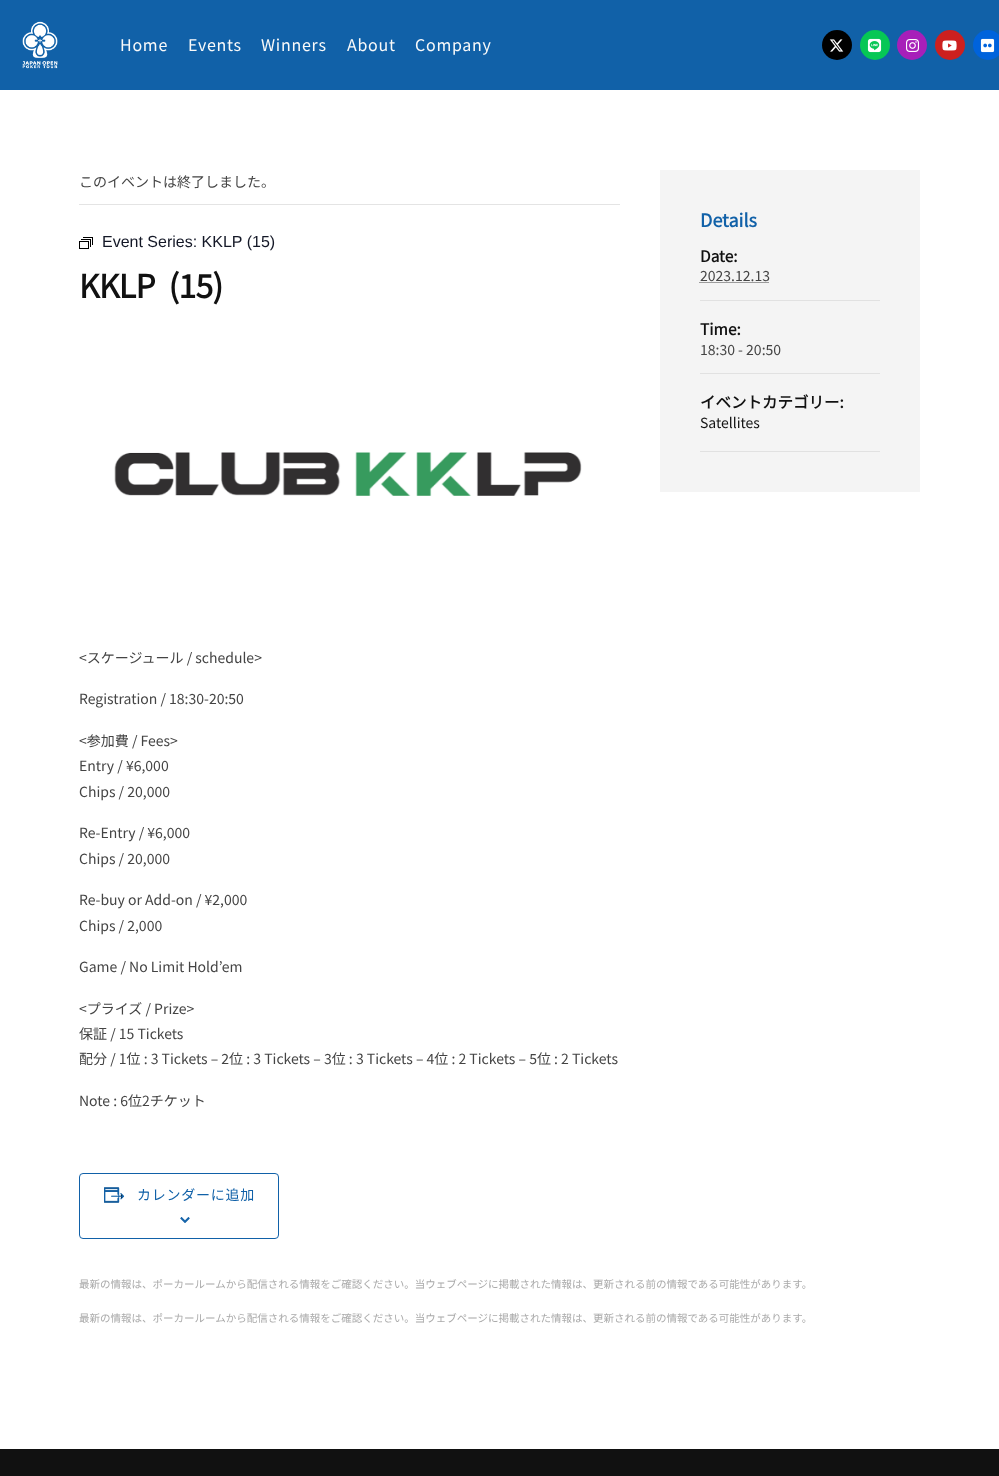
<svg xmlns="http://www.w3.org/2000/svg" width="999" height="1476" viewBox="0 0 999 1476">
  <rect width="100%" height="100%" fill="#fff"/>
  <path d="M0 0h999v90H0z" fill="#1161a8"/>
  <image x="22" y="21" width="36" height="48" href="img/1.png"/>
  <circle cx="837" cy="45" r="15" fill="#000"/>
  <image x="829" y="39" width="15" height="13" href="img/2.png"/>
  <circle cx="875" cy="45" r="15" fill="#06c755"/>
  <image x="867" y="38" width="15" height="15" href="img/3.png"/>
  <circle cx="912" cy="45" r="15" fill="#a71fb9"/>
  <image x="906" y="39" width="14" height="13" href="img/4.png"/>
  <circle cx="950" cy="45" r="15" fill="#cd201f"/>
  <image x="942" y="40" width="15" height="11" href="img/5.png"/>
  <circle cx="988" cy="45" r="15" fill="#0063dc"/>
  <image x="980" y="38" width="15" height="15" href="img/6.png"/>
  <path d="M79 204h541v1H79z" fill="#e4e4e4"/>
  <image x="79" y="237" width="14" height="12" href="img/7.png"/>
  <image x="114" y="452" width="468" height="44" href="img/8.png"/>
  <rect x="79.5" y="1173.5" width="199" height="65" rx="3.5" fill="none" stroke="#1161a8"/>
  <image x="104" y="1187" width="21" height="16" href="img/9.png"/>
  <image x="180" y="1217" width="10" height="6" href="img/10.png"/>
  <path d="M660 170h260v322H660z" fill="#f4f4f4"/>
  <path d="M699.5 282.5H769.5" fill="none" stroke="#444" stroke-dasharray="1 1"/>
  <path d="M700 300h180v1H700z" fill="#e1e1e1"/>
  <path d="M700 373h180v1H700z" fill="#e1e1e1"/>
  <path d="M700 451h180v1H700z" fill="#e1e1e1"/>
  <path d="M0 1449h999v27H0z" fill="#111"/>
  <g font-family="Noto Sans JP" font-size="16" letter-spacing="0.75" fill="#fafafa">
    <text x="120" y="51">Home</text>
    <text x="188" y="51">Events</text>
    <text x="261" y="51">Winners</text>
    <text x="347" y="51">About</text>
    <text x="415" y="51">Company</text>
  </g>
  <text x="79" y="187" font-family="Noto Sans JP" font-size="14" fill="#444">このイベントは終了しました。</text>
  <text x="102" y="247" font-family="Liberation Sans" font-size="16" fill="#141827">Event Series: KKLP (15)</text>
  <text x="79" y="298" word-spacing="7" font-family="Noto Sans JP" font-size="32" font-weight="bold" letter-spacing="-0.75" fill="#111">KKLP (15)</text>
  <g font-family="Noto Sans JP" font-size="14" fill="#444">
    <text x="79" y="663">&lt;スケージュール / schedule&gt;</text>
    <text x="79" y="704">Registration / 18:30-20:50</text>
    <text x="79" y="746">&lt;参加費 / Fees&gt;</text>
    <text x="79" y="771">Entry / ¥6,000</text>
    <text x="79" y="797">Chips / 20,000</text>
    <text x="79" y="838">Re-Entry / ¥6,000</text>
    <text x="79" y="864">Chips / 20,000</text>
    <text x="79" y="905">Re-buy or Add-on / ¥2,000</text>
    <text x="79" y="931">Chips / 2,000</text>
    <text x="79" y="972">Game / No Limit Hold’em</text>
    <text x="79" y="1014">&lt;プライズ / Prize&gt;</text>
    <text x="79" y="1039">保証 / 15 Tickets</text>
    <text x="79" y="1064">配分 / 1位 : 3 Tickets – 2位 : 3 Tickets – 3位 : 3 Tickets – 4位 : 2 Tickets – 5位 : 2 Tickets</text>
    <text x="79" y="1106">Note : 6位2チケット</text>
  </g>
  <text x="137" y="1200" font-family="Noto Sans JP" font-size="14" letter-spacing="0.75" fill="#1161a8">カレンダーに追加</text>
  <text x="700" y="227" font-family="Noto Sans JP" font-size="18" font-weight="bold" fill="#1161a8">Details</text>
  <text x="700" y="262" font-family="Noto Sans JP" font-size="15.5" font-weight="bold" fill="#111">Date:</text>
  <text x="700" y="281" font-family="Noto Sans JP" font-size="14" fill="#444">2023.12.13</text>
  <text x="700" y="335" font-family="Noto Sans JP" font-size="15.5" font-weight="bold" fill="#111">Time:</text>
  <text x="700" y="355" font-family="Noto Sans JP" font-size="14" fill="#444">18:30 - 20:50</text>
  <text x="700" y="408" font-family="Noto Sans JP" font-size="15.5" font-weight="bold" fill="#111">イベントカテゴリー:</text>
  <text x="700" y="428" font-family="Noto Sans JP" font-size="14" fill="#111">Satellites</text>
  <g font-family="Noto Sans JP" font-size="10.5" fill="#aaa">
    <text x="79" y="1288">最新の情報は、ポーカールームから配信される情報をご確認ください。当ウェブページに掲載された情報は、更新される前の情報である可能性があります。</text>
    <text x="79" y="1322">最新の情報は、ポーカールームから配信される情報をご確認ください。当ウェブページに掲載された情報は、更新される前の情報である可能性があります。</text>
  </g>
</svg>
